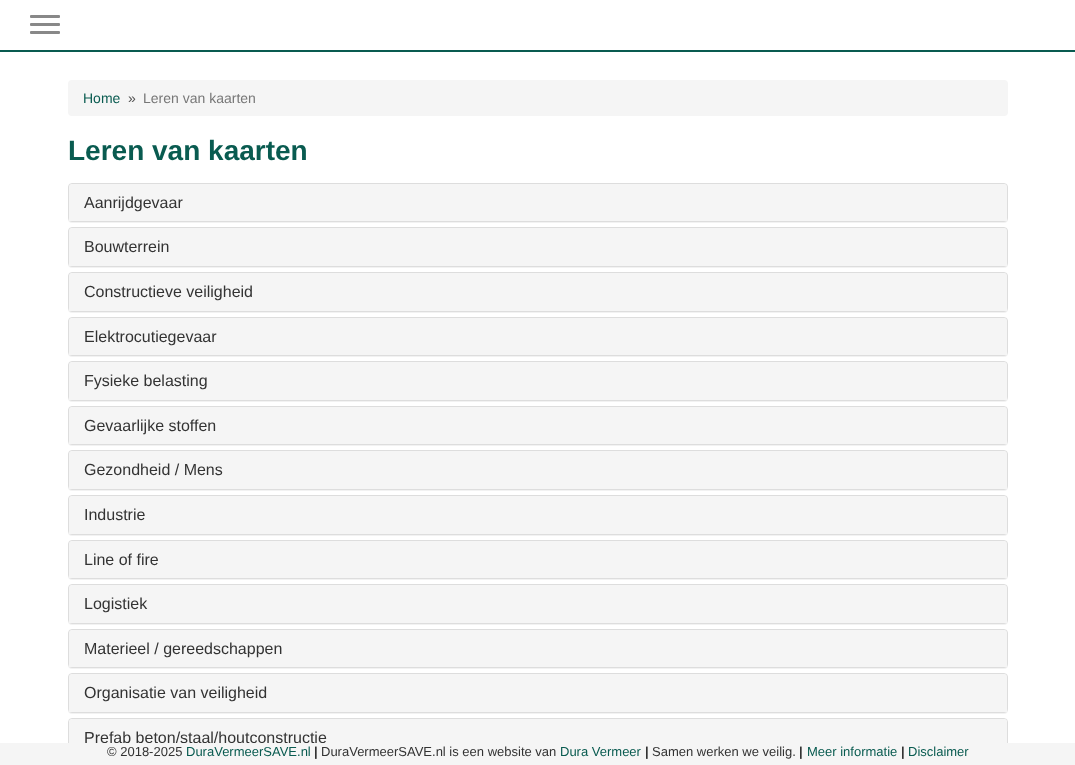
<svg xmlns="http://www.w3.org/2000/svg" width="1075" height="765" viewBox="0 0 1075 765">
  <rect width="100%" height="100%" fill="#fff"/>
  <path d="M0 50h1075v2H0z" fill="#095b50"/>
  <rect x="30" y="15" width="30" height="3" rx="1" fill="#888"/>
  <rect x="30" y="23" width="30" height="3" rx="1" fill="#888"/>
  <rect x="30" y="31" width="30" height="3" rx="1" fill="#888"/>
  <rect x="68" y="80" width="940" height="36" rx="4" fill="#f5f5f5"/>
  <rect x="68" y="184" width="940" height="39" rx="4" fill="#0000000d" filter="blur(0.5px)"/>
  <rect x="68.5" y="183.5" width="939" height="38" rx="3.5" fill="none" stroke="#ddd"/>
  <path d="M72 184H1004C1005.5 184 1007 185.5 1007 187V221H69V187C69 185.5 70.5 184 72 184Z" fill="#f5f5f5"/>
  <rect x="68" y="228" width="940" height="40" rx="4" fill="#0000000d" filter="blur(0.5px)"/>
  <rect x="68.5" y="227.5" width="939" height="39" rx="3.5" fill="none" stroke="#ddd"/>
  <path d="M72 228H1004C1005.5 228 1007 229.5 1007 231V266H69V231C69 229.5 70.5 228 72 228Z" fill="#f5f5f5"/>
  <rect x="68" y="273" width="940" height="40" rx="4" fill="#0000000d" filter="blur(0.5px)"/>
  <rect x="68.5" y="272.5" width="939" height="39" rx="3.5" fill="none" stroke="#ddd"/>
  <path d="M72 273H1004C1005.5 273 1007 274.5 1007 276V311H69V276C69 274.5 70.5 273 72 273Z" fill="#f5f5f5"/>
  <rect x="68" y="318" width="940" height="39" rx="4" fill="#0000000d" filter="blur(0.5px)"/>
  <rect x="68.5" y="317.5" width="939" height="38" rx="3.5" fill="none" stroke="#ddd"/>
  <path d="M72 318H1004C1005.5 318 1007 319.5 1007 321V355H69V321C69 319.5 70.5 318 72 318Z" fill="#f5f5f5"/>
  <rect x="68" y="362" width="940" height="40" rx="4" fill="#0000000d" filter="blur(0.5px)"/>
  <rect x="68.5" y="361.5" width="939" height="39" rx="3.5" fill="none" stroke="#ddd"/>
  <path d="M72 362H1004C1005.5 362 1007 363.5 1007 365V400H69V365C69 363.5 70.5 362 72 362Z" fill="#f5f5f5"/>
  <rect x="68" y="407" width="940" height="39" rx="4" fill="#0000000d" filter="blur(0.5px)"/>
  <rect x="68.5" y="406.5" width="939" height="38" rx="3.5" fill="none" stroke="#ddd"/>
  <path d="M72 407H1004C1005.5 407 1007 408.5 1007 410V444H69V410C69 408.5 70.5 407 72 407Z" fill="#f5f5f5"/>
  <rect x="68" y="451" width="940" height="40" rx="4" fill="#0000000d" filter="blur(0.5px)"/>
  <rect x="68.5" y="450.5" width="939" height="39" rx="3.5" fill="none" stroke="#ddd"/>
  <path d="M72 451H1004C1005.5 451 1007 452.5 1007 454V489H69V454C69 452.5 70.5 451 72 451Z" fill="#f5f5f5"/>
  <rect x="68" y="496" width="940" height="40" rx="4" fill="#0000000d" filter="blur(0.5px)"/>
  <rect x="68.5" y="495.5" width="939" height="39" rx="3.5" fill="none" stroke="#ddd"/>
  <path d="M72 496H1004C1005.5 496 1007 497.5 1007 499V534H69V499C69 497.5 70.5 496 72 496Z" fill="#f5f5f5"/>
  <rect x="68" y="541" width="940" height="39" rx="4" fill="#0000000d" filter="blur(0.5px)"/>
  <rect x="68.5" y="540.5" width="939" height="38" rx="3.5" fill="none" stroke="#ddd"/>
  <path d="M72 541H1004C1005.5 541 1007 542.5 1007 544V578H69V544C69 542.5 70.5 541 72 541Z" fill="#f5f5f5"/>
  <rect x="68" y="585" width="940" height="40" rx="4" fill="#0000000d" filter="blur(0.5px)"/>
  <rect x="68.5" y="584.5" width="939" height="39" rx="3.5" fill="none" stroke="#ddd"/>
  <path d="M72 585H1004C1005.5 585 1007 586.5 1007 588V623H69V588C69 586.5 70.5 585 72 585Z" fill="#f5f5f5"/>
  <rect x="68" y="630" width="940" height="39" rx="4" fill="#0000000d" filter="blur(0.5px)"/>
  <rect x="68.5" y="629.5" width="939" height="38" rx="3.5" fill="none" stroke="#ddd"/>
  <path d="M72 630H1004C1005.5 630 1007 631.5 1007 633V667H69V633C69 631.5 70.5 630 72 630Z" fill="#f5f5f5"/>
  <rect x="68" y="674" width="940" height="40" rx="4" fill="#0000000d" filter="blur(0.5px)"/>
  <rect x="68.5" y="673.5" width="939" height="39" rx="3.5" fill="none" stroke="#ddd"/>
  <path d="M72 674H1004C1005.5 674 1007 675.5 1007 677V712H69V677C69 675.5 70.5 674 72 674Z" fill="#f5f5f5"/>
  <rect x="68.5" y="718.5" width="939" height="39" rx="3.5" fill="none" stroke="#ddd"/>
  <path d="M72 719H1004C1005.5 719 1007 720.5 1007 722V757H69V722C69 720.5 70.5 719 72 719Z" fill="#f5f5f5"/>
  <text x="83" y="103" font-family="Liberation Sans" font-size="14" fill="#095b50">Home</text>
  <text x="128" y="103" font-family="Liberation Sans" font-size="14" fill="#555">»</text>
  <text x="143" y="103" font-family="Liberation Sans" font-size="14" fill="#777">Leren van kaarten</text>
  <text x="68" y="160" font-family="Liberation Sans" font-size="28" font-weight="bold" fill="#095b50">Leren van kaarten</text>
  <g font-family="Liberation Sans" font-size="16" fill="#333">
    <text x="84" y="208">Aanrijdgevaar</text>
    <text x="84" y="252">Bouwterrein</text>
    <text x="84" y="297">Constructieve veiligheid</text>
    <text x="84" y="342">Elektrocutiegevaar</text>
    <text x="84" y="386">Fysieke belasting</text>
    <text x="84" y="431">Gevaarlijke stoffen</text>
    <text x="84" y="475">Gezondheid / Mens</text>
    <text x="84" y="520">Industrie</text>
    <text x="84" y="565">Line of fire</text>
    <text x="84" y="609">Logistiek</text>
    <text x="84" y="654">Materieel / gereedschappen</text>
    <text x="84" y="698">Organisatie van veiligheid</text>
    <text x="84" y="743">Prefab beton/staal/houtconstructie</text>
  </g>
  <path d="M0 743h1075v22H0z" fill="#f5f5f5"/>
  <text x="107" y="756" font-family="Liberation Sans" font-size="13" fill="#333">© 2018-2025</text>
  <text x="186" y="756" font-family="Liberation Sans" font-size="13" fill="#095b50">DuraVermeerSAVE.nl</text>
  <text x="314" y="756" font-family="Liberation Sans" font-size="13" font-weight="bold" fill="#333">|</text>
  <text x="321" y="756" font-family="Liberation Sans" font-size="13" fill="#333">DuraVermeerSAVE.nl is een website van</text>
  <text x="560" y="756" font-family="Liberation Sans" font-size="13" fill="#095b50">Dura Vermeer</text>
  <text x="645" y="756" font-family="Liberation Sans" font-size="13" font-weight="bold" fill="#333">|</text>
  <text x="652" y="756" font-family="Liberation Sans" font-size="13" fill="#333">Samen werken we veilig.</text>
  <text x="799" y="756" font-family="Liberation Sans" font-size="13" font-weight="bold" fill="#333">|</text>
  <text x="807" y="756" font-family="Liberation Sans" font-size="13" fill="#095b50">Meer informatie</text>
  <text x="901" y="756" font-family="Liberation Sans" font-size="13" font-weight="bold" fill="#333">|</text>
  <text x="908" y="756" font-family="Liberation Sans" font-size="13" fill="#095b50">Disclaimer</text>
</svg>
